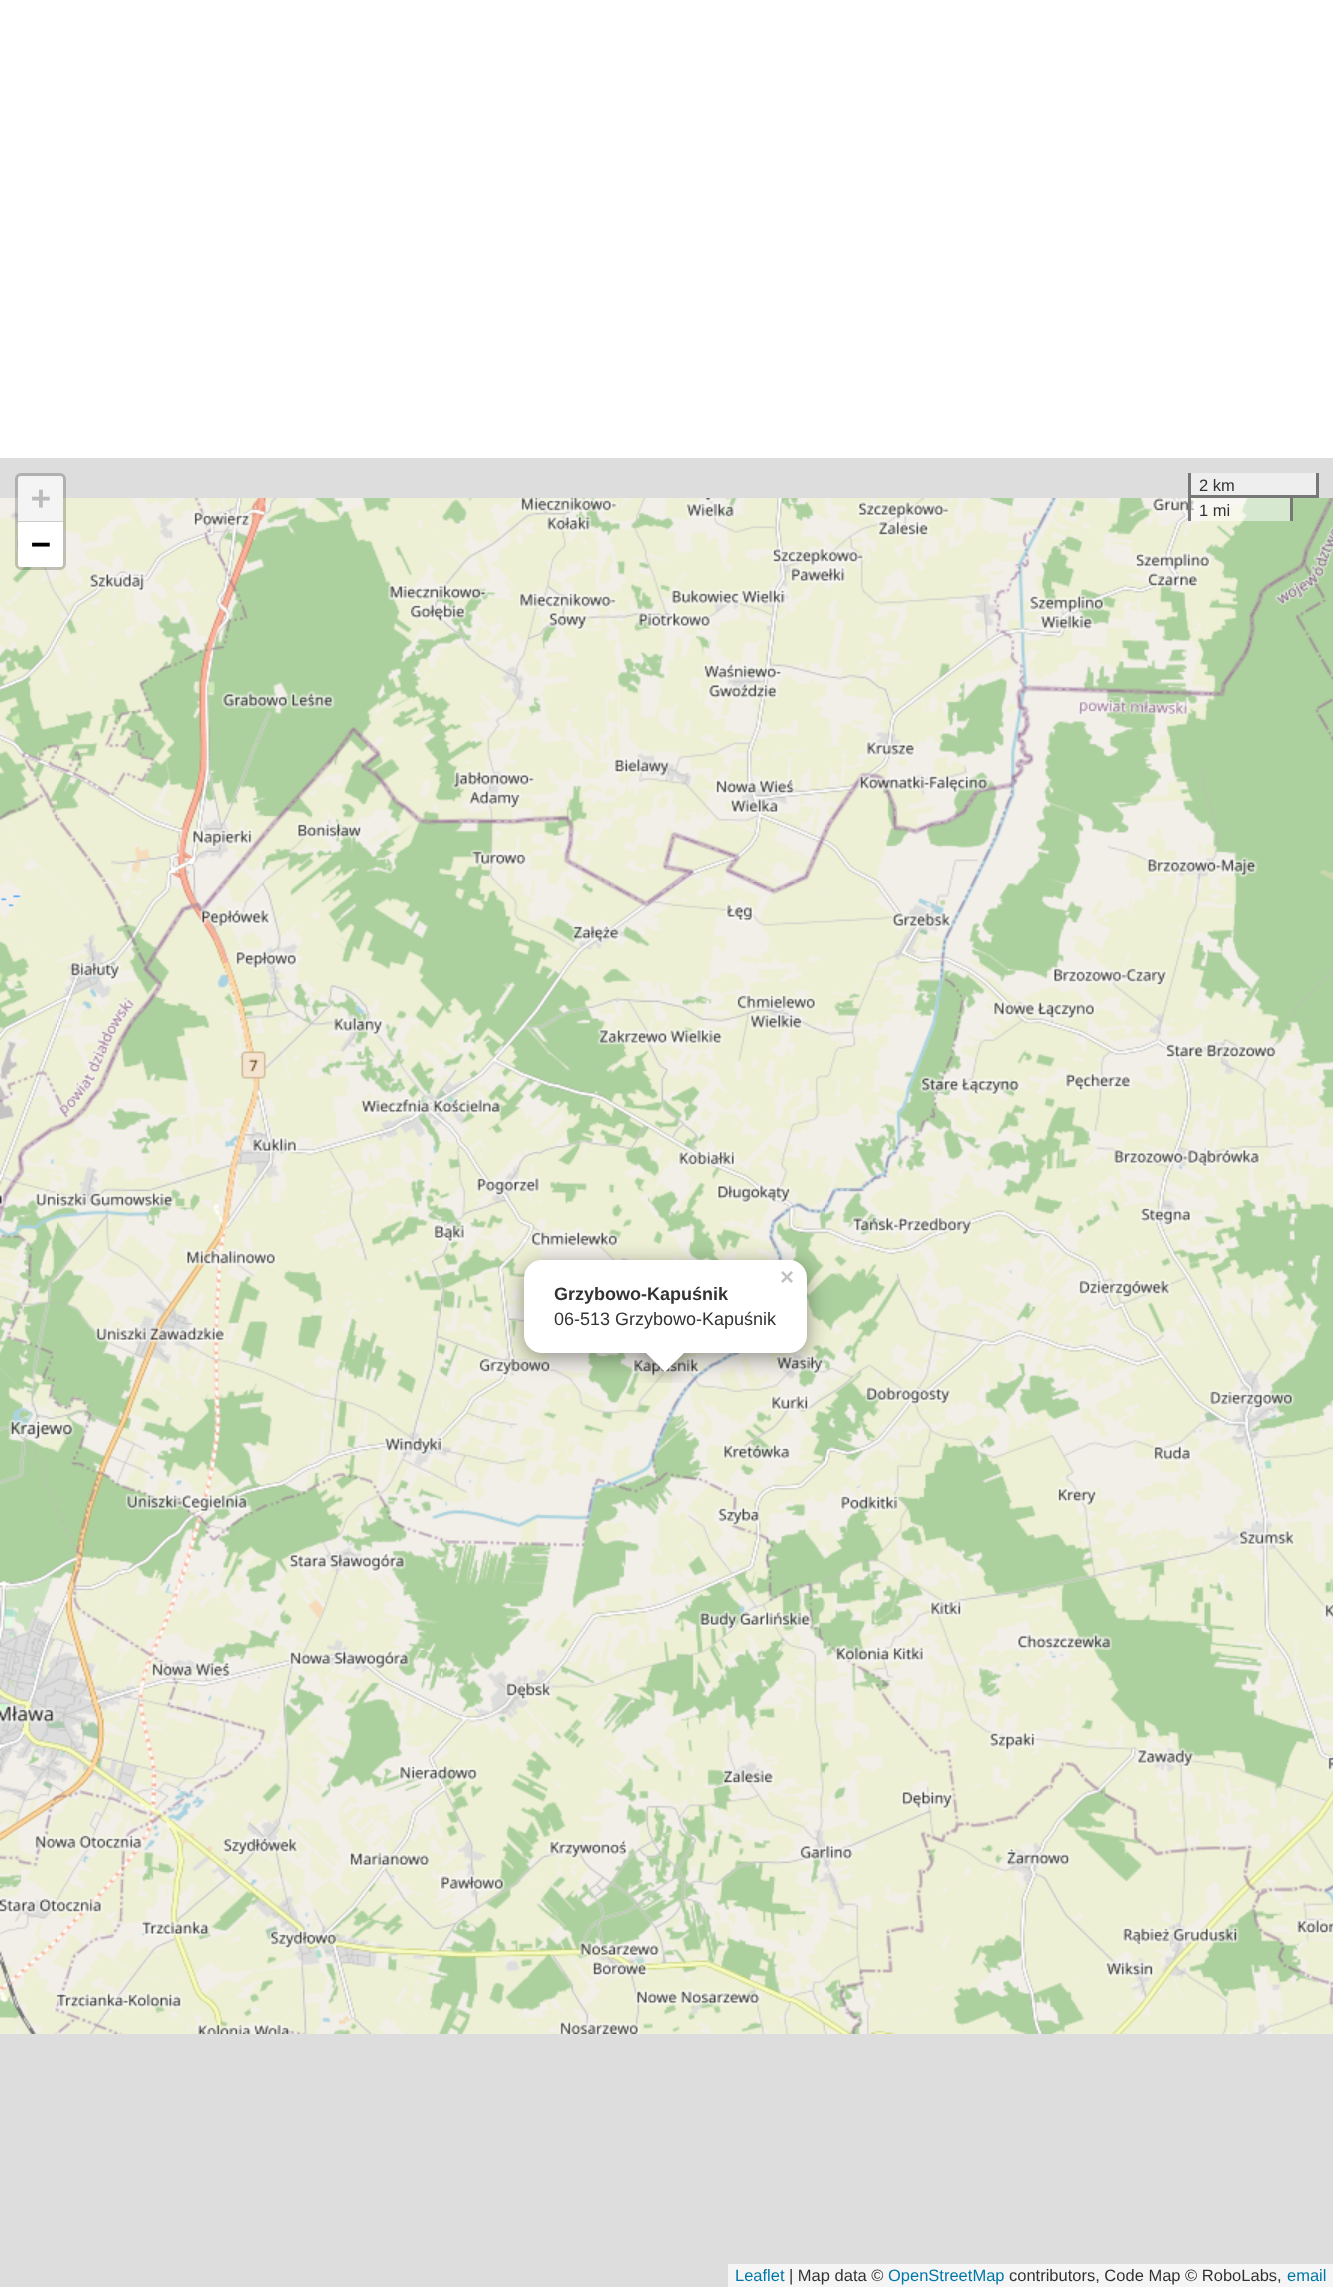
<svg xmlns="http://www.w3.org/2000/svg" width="1333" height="2287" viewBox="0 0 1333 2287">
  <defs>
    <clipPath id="clip1"><path d="M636 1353h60v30H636z"/></clipPath>
    <clipPath id="clip2"><path d="M636 1353h60v30H636z"/></clipPath>
  </defs>
  <rect width="100%" height="100%" fill="#fff"/>
  <path d="M0 458h1333v1829H0z" fill="#ddd"/>
  <image x="0" y="498" width="57" height="384" href="img/1.png"/>
  <image x="57" y="498" width="384" height="384" href="img/2.png"/>
  <rect x="16.5" y="474.5" width="48" height="94" rx="4.5" fill="none" stroke="#00000033" stroke-width="3"/>
  <path d="M21 476H60C61.5 476 63 477.5 63 479V522H18V479C18 477.5 19.5 476 21 476Z" fill="#f4f4f4"/>
  <path d="M18 521h45v1H18z" fill="#ccc"/>
  <path d="M18 522H63V564C63 565.5 61.5 567 60 567H21C19.5 567 18 565.5 18 564Z" fill="#fff"/>
  <path d="M1191 473h125v22H1191z" fill="#eee"/>
  <path d="M1316 473h3v25H1316z" fill="#777"/>
  <path d="M1293 495h26v3H1293z" fill="#777"/>
  <path d="M1188 473h3v25H1188z" fill="#777"/>
  <image x="825" y="498" width="384" height="384" href="img/4.png"/>
  <image x="1209" y="498" width="124" height="384" href="img/5.png"/>
  <path d="M1191 498h99v23H1191z" fill="#ffffff80"/>
  <path d="M1188 495h105v3H1188z" fill="#777"/>
  <path d="M1290 495h3v26H1290z" fill="#777"/>
  <path d="M1188 495h3v26H1188z" fill="#777"/>
  <path d="M728 2264h605v23H728z" fill="#f5f5f5"/>
  <image x="441" y="498" width="384" height="384" href="img/3.png"/>
  <image x="0" y="882" width="57" height="384" href="img/6.png"/>
  <image x="57" y="882" width="384" height="384" href="img/7.png"/>
  <image x="441" y="882" width="384" height="384" href="img/8.png"/>
  <image x="825" y="882" width="384" height="384" href="img/9.png"/>
  <image x="1209" y="882" width="124" height="384" href="img/10.png"/>
  <image x="0" y="1266" width="57" height="384" href="img/11.png"/>
  <image x="57" y="1266" width="384" height="384" href="img/12.png"/>
  <image x="441" y="1266" width="384" height="384" href="img/13.png"/>
  <image x="825" y="1266" width="384" height="384" href="img/14.png"/>
  <image x="1209" y="1266" width="124" height="384" href="img/15.png"/>
  <image x="0" y="1650" width="57" height="384" href="img/16.png"/>
  <image x="57" y="1650" width="384" height="384" href="img/17.png"/>
  <image x="441" y="1650" width="384" height="384" href="img/18.png"/>
  <image x="825" y="1650" width="384" height="384" href="img/19.png"/>
  <image x="1209" y="1650" width="124" height="384" href="img/20.png"/>
  <rect x="524" y="1265" width="283" height="93" rx="18" fill="#00000066" filter="blur(10.5px)"/>
  <rect x="524" y="1260" width="283" height="93" rx="18" fill="#fff"/>
  <g clip-path="url(#clip1)">
    <path d="M651 1343h29v28H651z" fill="#00000066" filter="blur(10.5px)"/>
  </g>
  <g clip-path="url(#clip2)">
    <path d="M665 1332L685 1352L665 1372L645 1352Z" fill="#fff"/>
  </g>
  <text x="31" y="509" font-family="DejaVu Sans Mono" font-size="33" font-weight="bold" fill="#bbb">+</text>
  <text x="31" y="555" font-family="DejaVu Sans Mono" font-size="33" font-weight="bold" fill="#000">−</text>
  <g font-family="Liberation Sans" font-size="16.5" fill="#333">
    <text x="1199" y="491">2 km</text>
    <text x="1199" y="516">1 mi</text>
  </g>
  <text x="735" y="2281" font-family="Liberation Sans" font-size="16.5" fill="#0078a8">Leaflet</text>
  <text x="789" y="2281" font-family="Liberation Sans" font-size="16.5" fill="#333">| Map data ©</text>
  <text x="888" y="2281" font-family="Liberation Sans" font-size="16.5" fill="#0078a8">OpenStreetMap</text>
  <text x="1009" y="2281" font-family="Liberation Sans" font-size="16.5" fill="#333">contributors, Code Map © RoboLabs,</text>
  <text x="1287" y="2281" font-family="Liberation Sans" font-size="16.5" fill="#0078a8">email</text>
  <text x="780" y="1285" font-family="Liberation Sans" font-size="24" font-weight="bold" fill="#c3c3c3">×</text>
  <text x="554" y="1300" font-family="Liberation Sans" font-size="18" font-weight="bold" fill="#333">Grzybowo-Kapuśnik</text>
  <text x="554" y="1325" font-family="Liberation Sans" font-size="18" fill="#333">06-513 Grzybowo-Kapuśnik</text>
</svg>
